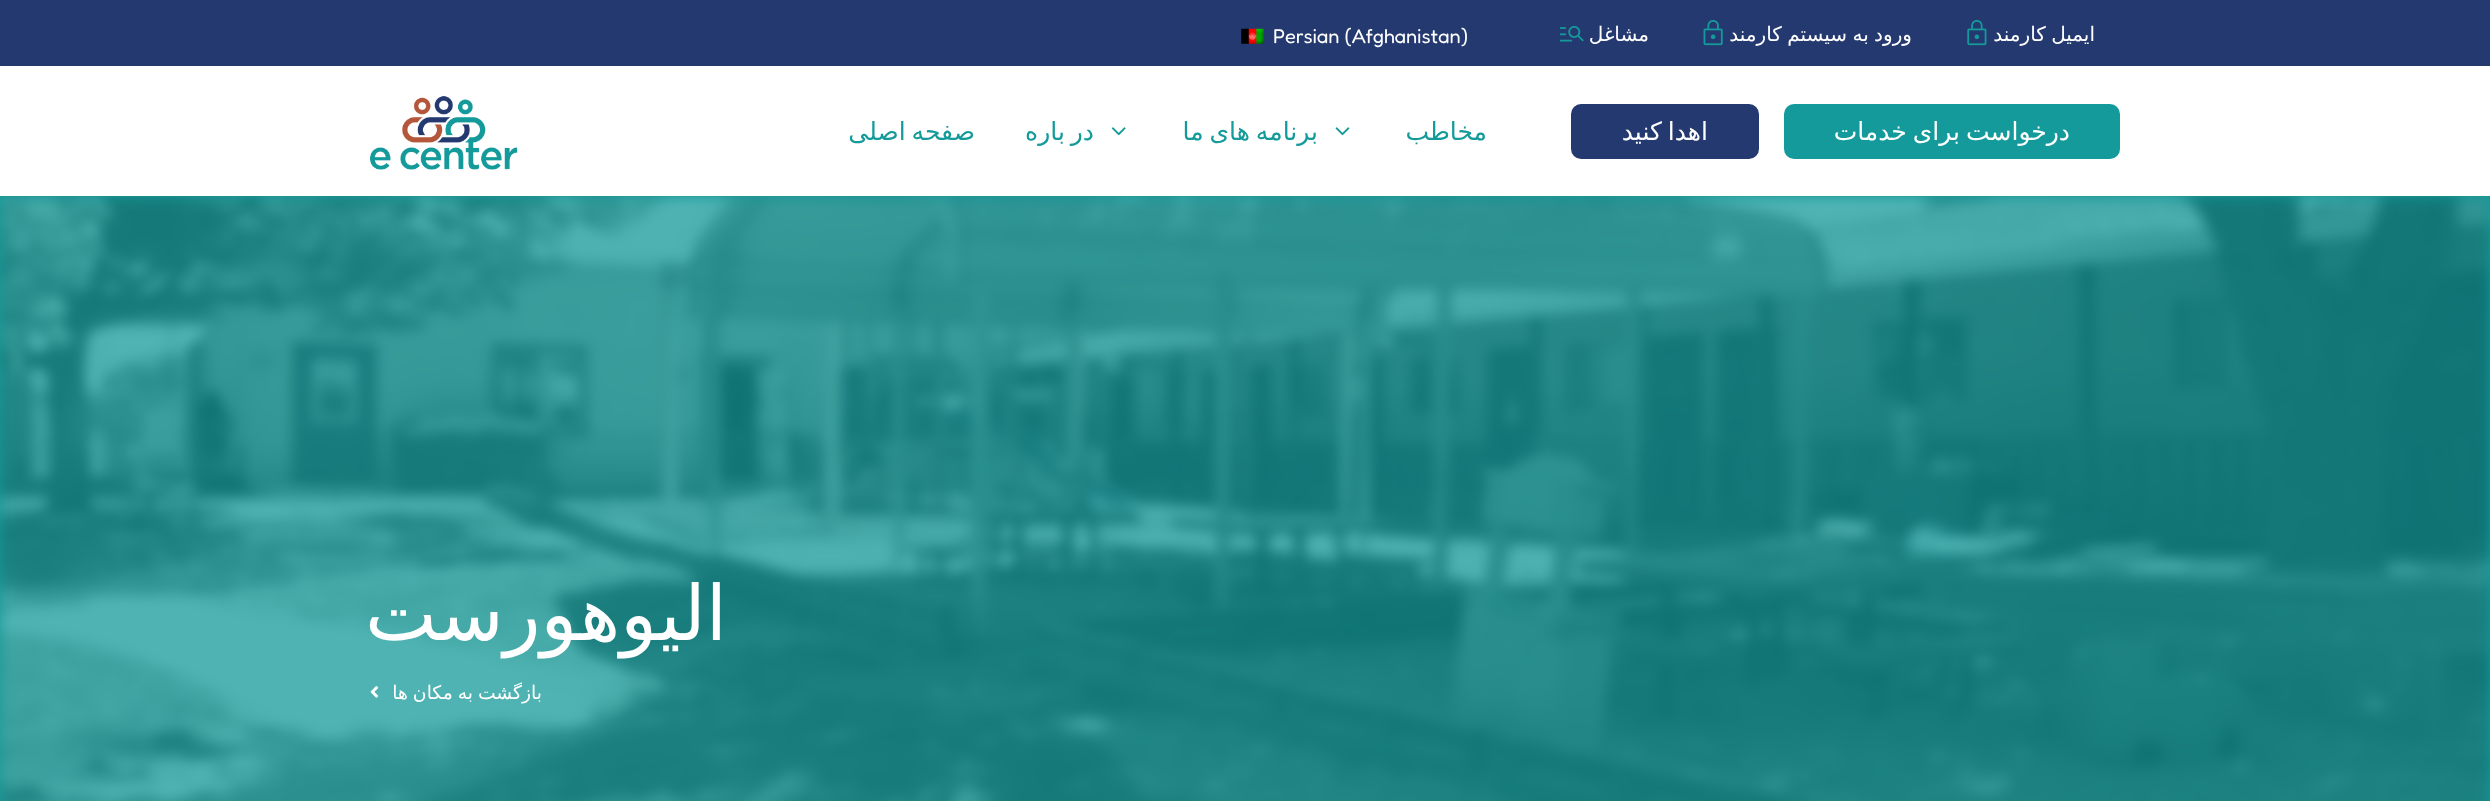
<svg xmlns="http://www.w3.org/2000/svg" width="2490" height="801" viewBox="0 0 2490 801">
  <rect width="100%" height="100%" fill="#fff"/>
  <path d="M0 0h2490v66H0z" fill="#24396f"/>
  <image x="1967" y="20" width="20" height="26" href="img/1.png"/>
  <image x="1703" y="20" width="20" height="26" href="img/2.png"/>
  <image x="1559" y="26" width="25" height="16" href="img/3.png"/>
  <image x="1241" y="28" width="23" height="16" href="img/4.png"/>
  <rect x="1784" y="104" width="336" height="55" rx="10" fill="#149a9a"/>
  <rect x="1571" y="104" width="188" height="55" rx="10" fill="#24396f"/>
  <image x="1335" y="127" width="15" height="9" href="img/5.png"/>
  <image x="1111" y="127" width="15" height="9" href="img/6.png"/>
  <image x="370" y="96" width="148" height="74" href="img/7.png"/>
  <path d="M0 196h2490v605H0z" fill="#149a9a"/>
  <image x="0" y="196" width="2490" height="605" href="img/8.png"/>
  <image x="370" y="686" width="9" height="12" href="img/9.png"/>
  <g font-family="DejaVu Sans" font-size="20" direction="rtl" fill="#fff">
    <text x="2095" y="41" word-spacing="-1">ایمیل کارمند</text>
    <text x="1912" y="41" word-spacing="-1">ورود به سیستم کارمند</text>
    <text x="1649" y="41">مشاغل</text>
  </g>
  <text x="1273" y="43" font-family="Fredoka" font-size="20" fill="#fff">Persian (Afghanistan)</text>
  <g font-family="DejaVu Sans" font-size="25" direction="rtl" fill="#fff">
    <text x="2070" y="140" word-spacing="-2">درخواست برای خدمات</text>
    <text x="1708" y="140" word-spacing="-2">اهدا کنید</text>
  </g>
  <g font-family="DejaVu Sans" font-size="25" direction="rtl" fill="#149a9a">
    <text x="1487" y="140">مخاطب</text>
    <text x="1318" y="140" word-spacing="-2">برنامه های ما</text>
    <text x="1094" y="140" word-spacing="-2">در باره</text>
    <text x="975" y="140" word-spacing="-2">صفحه اصلی</text>
  </g>
  <text x="727" y="640" font-family="DejaVu Sans" font-size="76.25" direction="rtl" fill="#fff">الیوهورست</text>
  <text x="542" y="699" word-spacing="-1" font-family="DejaVu Sans" font-size="18.75" direction="rtl" fill="#fff">بازگشت به مکان ها</text>
</svg>
